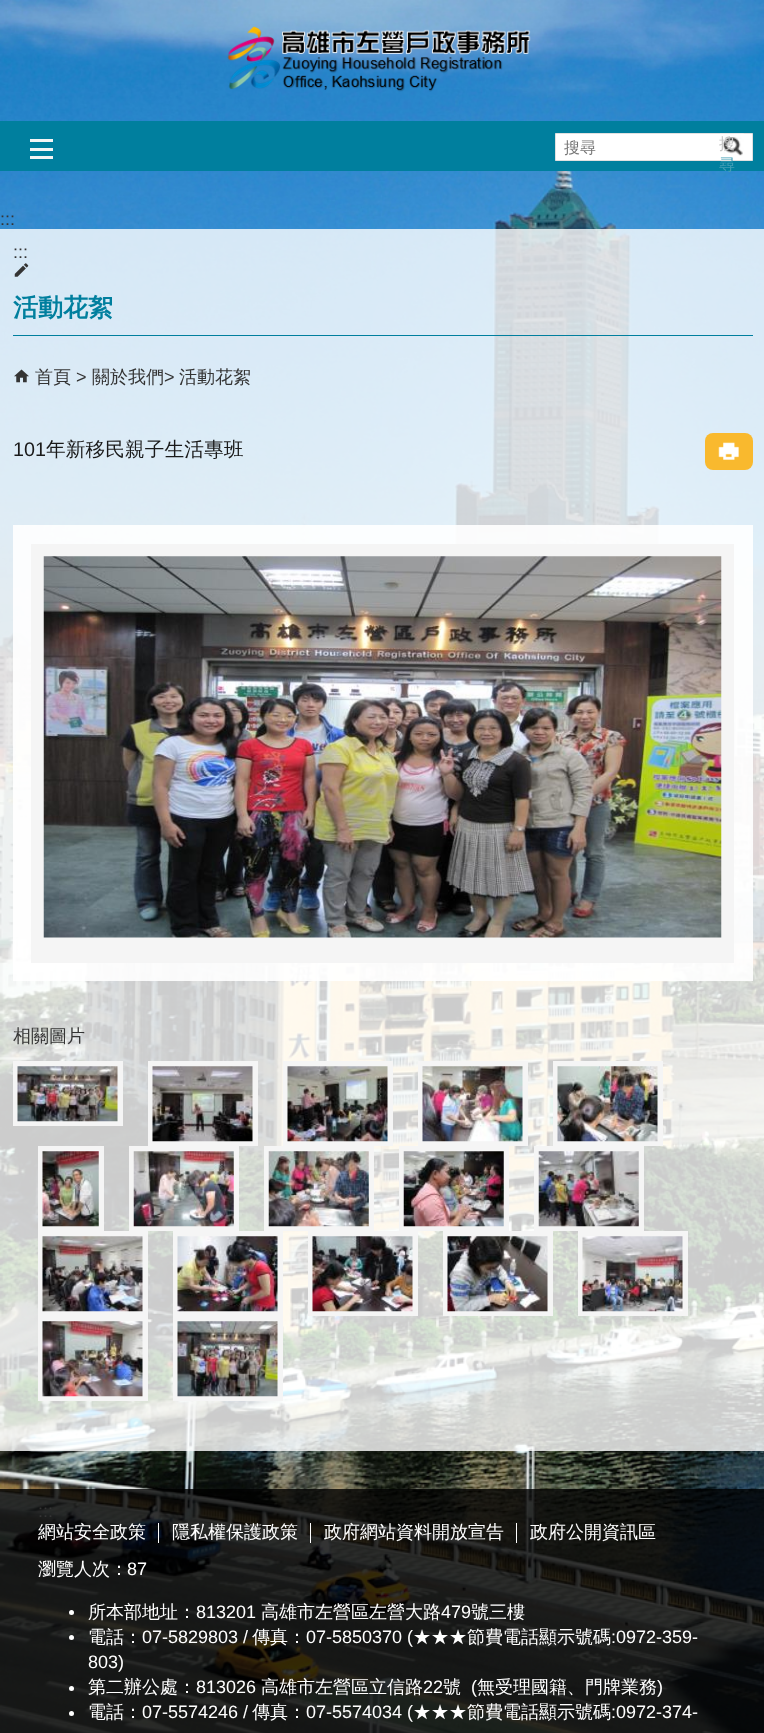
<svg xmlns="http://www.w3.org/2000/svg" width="764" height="1733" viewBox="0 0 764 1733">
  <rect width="100%" height="100%" fill="#fff"/>
  <image x="0" y="0" width="764" height="1733" href="img/1.png"/>
  <path d="M0 121h764v50H0z" fill="#007f9e"/>
  <path d="M30 156h23v3H30z" fill="#f5f5f5"/>
  <path d="M30 148h23v3H30z" fill="#f5f5f5"/>
  <path d="M30 139h23v3H30z" fill="#f5f5f5"/>
  <image x="227" y="26" width="304" height="66" href="img/2.png"/>
  <path d="M555.5 133.5h197v27H555.5z" fill="#fff" stroke="#e0e0e0"/>
  <image x="720" y="133" width="24" height="23" href="img/3.png"/>
  <path d="M0 229h764v1222H0z" fill="#ffffffcc"/>
  <image x="14" y="263" width="15" height="14" href="img/4.png"/>
  <path d="M13 335h740v1H13z" fill="#007f9e"/>
  <image x="14" y="369" width="15" height="14" href="img/5.png"/>
  <rect x="705" y="433" width="48" height="37" rx="8" fill="#f9b92e"/>
  <image x="718" y="442" width="21" height="18" href="img/6.png"/>
  <path d="M13 525h740v456H13z" fill="#ffffffe6"/>
  <path d="M31 544h703v419H31z" fill="#f5f5f5"/>
  <image x="43" y="556" width="679" height="382" href="img/7.png"/>
  <path d="M13 1061h110v65H13z" fill="#f5f5f5"/>
  <image x="17" y="1066" width="101" height="56" href="img/8.png"/>
  <path d="M148 1061h110v85H148z" fill="#f5f5f5"/>
  <image x="152" y="1066" width="101" height="76" href="img/9.png"/>
  <path d="M283 1061h110v85H283z" fill="#f5f5f5"/>
  <image x="287" y="1066" width="101" height="76" href="img/10.png"/>
  <path d="M418 1061h110v85H418z" fill="#f5f5f5"/>
  <image x="422" y="1066" width="101" height="76" href="img/11.png"/>
  <path d="M553 1061h110v85H553z" fill="#f5f5f5"/>
  <image x="557" y="1066" width="101" height="76" href="img/12.png"/>
  <path d="M38 1146h66v85H38z" fill="#f5f5f5"/>
  <image x="42" y="1151" width="57" height="76" href="img/13.png"/>
  <path d="M129 1146h110v85H129z" fill="#f5f5f5"/>
  <image x="133" y="1151" width="101" height="76" href="img/14.png"/>
  <path d="M264 1146h110v85H264z" fill="#f5f5f5"/>
  <image x="268" y="1151" width="101" height="76" href="img/15.png"/>
  <path d="M399 1146h110v85H399z" fill="#f5f5f5"/>
  <image x="403" y="1151" width="101" height="76" href="img/16.png"/>
  <path d="M534 1146h110v85H534z" fill="#f5f5f5"/>
  <image x="538" y="1151" width="101" height="76" href="img/17.png"/>
  <path d="M38 1231h110v170H38z" fill="#f5f5f5"/>
  <image x="42" y="1236" width="101" height="76" href="img/18.png"/>
  <path d="M173 1231h110v170H173z" fill="#f5f5f5"/>
  <image x="177" y="1236" width="101" height="76" href="img/19.png"/>
  <path d="M308 1231h110v85H308z" fill="#f5f5f5"/>
  <image x="312" y="1236" width="101" height="76" href="img/20.png"/>
  <path d="M443 1231h110v85H443z" fill="#f5f5f5"/>
  <image x="447" y="1236" width="101" height="76" href="img/21.png"/>
  <path d="M578 1231h110v85H578z" fill="#f5f5f5"/>
  <image x="582" y="1236" width="101" height="76" href="img/22.png"/>
  <image x="42" y="1321" width="101" height="76" href="img/23.png"/>
  <image x="177" y="1321" width="101" height="76" href="img/24.png"/>
  <path d="M0 1489h764v244H0z" fill="#000000cc"/>
  <path d="M158 1523h1v20H158z" fill="#fff"/>
  <path d="M310 1523h1v20H310z" fill="#fff"/>
  <path d="M516 1523h1v20H516z" fill="#fff"/>
  <circle cx="71.5" cy="1612.5" r="2.5" fill="#fff"/>
  <circle cx="71.5" cy="1637.5" r="2.5" fill="#fff"/>
  <circle cx="71.5" cy="1688.5" r="2.5" fill="#fff"/>
  <circle cx="71.5" cy="1713.5" r="2.5" fill="#fff"/>
  <text x="564" y="153" font-family="WenQuanYi Zen Hei" font-size="16" font-weight="500" fill="#757575">搜尋</text>
  <text x="719" y="149" font-family="WenQuanYi Zen Hei" font-size="16" font-weight="500" fill="#c4c4c4">搜</text>
  <text x="719" y="170" font-family="WenQuanYi Zen Hei" font-size="16" font-weight="500" fill="#429eb6">尋</text>
  <g font-family="Liberation Sans" font-size="18" fill="#343434">
    <text x="0" y="225">:::</text>
    <text x="13" y="258">:::</text>
  </g>
  <text x="13" y="316" font-family="WenQuanYi Zen Hei" font-size="25" font-weight="bold" fill="#007f9e">活動花絮</text>
  <text x="35" y="383" font-family="WenQuanYi Zen Hei" font-size="18" font-weight="500" fill="#343434">首頁</text>
  <text x="76" y="383" font-family="Liberation Sans" font-size="18" fill="#343434">&gt;</text>
  <text x="92" y="383" font-family="WenQuanYi Zen Hei" font-size="18" font-weight="500" fill="#343434">關於我們</text>
  <text x="164" y="383" font-family="Liberation Sans" font-size="18" fill="#343434">&gt;</text>
  <text x="179" y="383" font-family="WenQuanYi Zen Hei" font-size="18" font-weight="500" fill="#343434">活動花絮</text>
  <text x="13" y="456" font-family="Liberation Sans" font-size="19.75" fill="#1a1a1a">101</text>
  <text x="46" y="456" font-family="WenQuanYi Zen Hei" font-size="19.75" font-weight="500" fill="#1a1a1a">年新移民親子生活專班</text>
  <text x="13" y="1042" font-family="WenQuanYi Zen Hei" font-size="18" font-weight="500" fill="#343434">相關圖片</text>
  <text x="38" y="1517" font-family="Liberation Sans" font-size="18" fill="#343434">:::</text>
  <g font-family="WenQuanYi Zen Hei" font-size="18" font-weight="500" fill="#fff">
    <text x="38" y="1538">網站安全政策</text>
    <text x="172" y="1538">隱私權保護政策</text>
    <text x="324" y="1538">政府網站資料開放宣告</text>
    <text x="530" y="1538">政府公開資訊區</text>
    <text x="38" y="1575">瀏覽人次：</text>
  </g>
  <text x="127" y="1575" font-family="Liberation Sans" font-size="18" fill="#fff">87</text>
  <text x="88" y="1618" font-family="WenQuanYi Zen Hei" font-size="18" font-weight="500" fill="#fff">所本部地址：</text>
  <text x="196" y="1618" font-family="Liberation Sans" font-size="18" fill="#fff">813201</text>
  <text x="261" y="1618" font-family="WenQuanYi Zen Hei" font-size="18" font-weight="500" fill="#fff">高雄市左營區左營大路</text>
  <text x="441" y="1618" font-family="Liberation Sans" font-size="18" fill="#fff">479</text>
  <g font-family="WenQuanYi Zen Hei" font-size="18" font-weight="500" fill="#fff">
    <text x="471" y="1618">號三樓</text>
    <text x="88" y="1643">電話：</text>
  </g>
  <text x="142" y="1643" font-family="Liberation Sans" font-size="18" fill="#fff">07-5829803 /</text>
  <text x="252" y="1643" font-family="WenQuanYi Zen Hei" font-size="18" font-weight="500" fill="#fff">傳真：</text>
  <text x="306" y="1643" font-family="Liberation Sans" font-size="18" fill="#fff">07-5850370 (</text>
  <text x="413" y="1643" font-family="WenQuanYi Zen Hei" font-size="18" font-weight="500" fill="#fff">★★★節費電話顯示號碼</text>
  <g font-family="Liberation Sans" font-size="18" fill="#fff">
    <text x="611" y="1643">:0972-359-</text>
    <text x="88" y="1668">803)</text>
  </g>
  <text x="88" y="1693" font-family="WenQuanYi Zen Hei" font-size="18" font-weight="500" fill="#fff">第二辦公處：</text>
  <text x="196" y="1693" font-family="Liberation Sans" font-size="18" fill="#fff">813026</text>
  <text x="261" y="1693" font-family="WenQuanYi Zen Hei" font-size="18" font-weight="500" fill="#fff">高雄市左營區立信路</text>
  <text x="423" y="1693" font-family="Liberation Sans" font-size="18" fill="#fff">22</text>
  <text x="443" y="1693" font-family="WenQuanYi Zen Hei" font-size="18" font-weight="500" fill="#fff">號</text>
  <text x="471" y="1693" font-family="Liberation Sans" font-size="18" fill="#fff">(</text>
  <text x="477" y="1693" font-family="WenQuanYi Zen Hei" font-size="18" font-weight="500" fill="#fff">無受理國籍、門牌業務</text>
  <text x="657" y="1693" font-family="Liberation Sans" font-size="18" fill="#fff">)</text>
  <text x="88" y="1718" font-family="WenQuanYi Zen Hei" font-size="18" font-weight="500" fill="#fff">電話：</text>
  <text x="142" y="1718" font-family="Liberation Sans" font-size="18" fill="#fff">07-5574246 /</text>
  <text x="252" y="1718" font-family="WenQuanYi Zen Hei" font-size="18" font-weight="500" fill="#fff">傳真：</text>
  <text x="306" y="1718" font-family="Liberation Sans" font-size="18" fill="#fff">07-5574034 (</text>
  <text x="413" y="1718" font-family="WenQuanYi Zen Hei" font-size="18" font-weight="500" fill="#fff">★★★節費電話顯示號碼</text>
  <text x="611" y="1718" font-family="Liberation Sans" font-size="18" fill="#fff">:0972-374-</text>
</svg>
